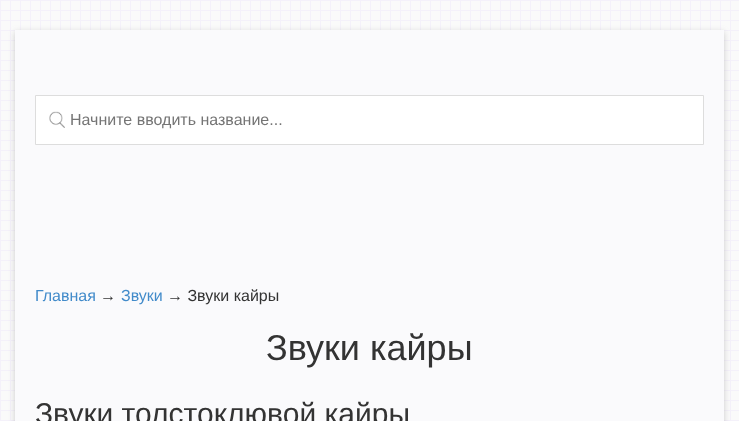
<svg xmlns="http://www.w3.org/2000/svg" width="739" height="421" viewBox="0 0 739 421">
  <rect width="100%" height="100%" fill="#fff"/>
  <image x="0" y="0" width="739" height="421" href="img/1.png"/>
  <path d="M15 32h709v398H15z" fill="#6464644d" filter="blur(3px)"/>
  <path d="M15 30h709v391H15z" fill="#fafafc"/>
  <path d="M35.5 95.5h668v49H35.5z" fill="#fff" stroke="#ddd"/>
  <image x="49" y="111" width="16" height="17" href="img/2.png"/>
  <text x="70" y="125" font-family="Liberation Sans" font-size="16" fill="#757575">Начните вводить название...</text>
  <text x="35" y="301" font-family="Liberation Sans" font-size="16" fill="#428bca">Главная</text>
  <text x="100" y="301" font-family="Liberation Sans" font-size="16" fill="#333">→</text>
  <text x="121" y="301" font-family="Liberation Sans" font-size="16" fill="#428bca">Звуки</text>
  <text x="167" y="301" font-family="Liberation Sans" font-size="16" fill="#333">→ Звуки кайры</text>
  <text x="266" y="360" font-family="Liberation Sans" font-size="36" fill="#333">Звуки кайры</text>
  <text x="35" y="424" font-family="Liberation Sans" font-size="30" fill="#333">Звуки толстоклювой кайры</text>
</svg>
